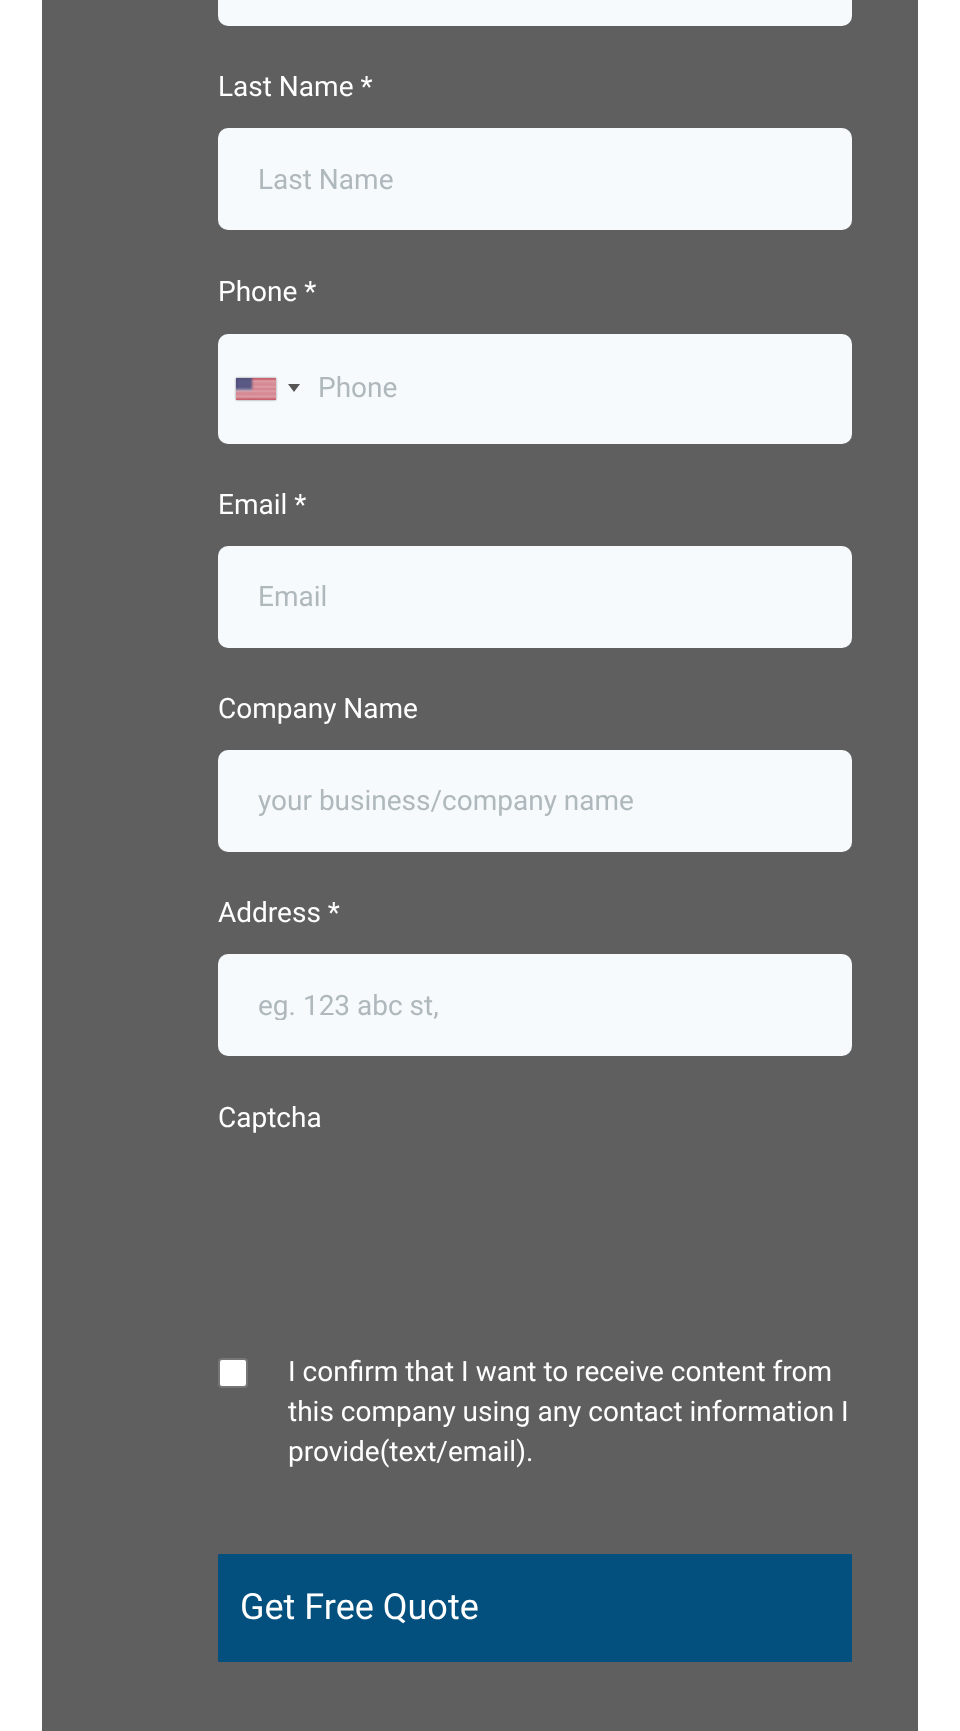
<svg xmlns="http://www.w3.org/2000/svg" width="960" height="1731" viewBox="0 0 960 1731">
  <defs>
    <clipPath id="clip1"><path d="M258 988h554v32H258z"/></clipPath>
  </defs>
  <rect width="100%" height="100%" fill="#fff"/>
  <path d="M42 0h876v1731H42z" fill="#5f5f5f"/>
  <rect x="218" y="-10" width="634" height="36" rx="10" fill="#f7fafc"/>
  <rect x="218" y="128" width="634" height="102" rx="10" fill="#f7fafc"/>
  <rect x="218" y="334" width="634" height="110" rx="10" fill="#f7fafc"/>
  <path d="M236 378h40v22H236z" fill="#888" filter="blur(1px)"/>
  <image x="236" y="378" width="40" height="22" href="img/1.png"/>
  <path d="M288 384H300L294 392Z" fill="#555"/>
  <rect x="218" y="546" width="634" height="102" rx="10" fill="#f7fafc"/>
  <rect x="218" y="750" width="634" height="102" rx="10" fill="#f7fafc"/>
  <rect x="218" y="954" width="634" height="102" rx="10" fill="#f7fafc"/>
  <rect x="219" y="1359" width="28" height="28" rx="3" fill="#fff" stroke="#767676" stroke-width="2"/>
  <rect x="218" y="1554" width="634" height="108" rx="1" fill="#03507f"/>
  <text x="218" y="96" font-family="Roboto" font-size="28" fill="#fff">Last Name *</text>
  <text x="258" y="189" font-family="Roboto" font-size="28" fill="#afb8bc">Last Name</text>
  <text x="218" y="301" font-family="Roboto" font-size="28" fill="#fff">Phone *</text>
  <text x="318" y="397" font-family="Roboto" font-size="28" fill="#afb8bc">Phone</text>
  <text x="218" y="514" font-family="Roboto" font-size="28" fill="#fff">Email *</text>
  <text x="258" y="606" font-family="Roboto" font-size="28" fill="#afb8bc">Email</text>
  <text x="218" y="718" font-family="Roboto" font-size="28" fill="#fff">Company Name</text>
  <text x="258" y="810" font-family="Roboto" font-size="28" fill="#afb8bc">your business/company name</text>
  <text x="218" y="922" font-family="Roboto" font-size="28" fill="#fff">Address *</text>
  <g clip-path="url(#clip1)">
    <text x="258" y="1015" font-family="Roboto" font-size="28" fill="#afb8bc">eg. 123 abc st,</text>
  </g>
  <g font-family="Roboto" font-size="28" fill="#fff">
    <text x="218" y="1127">Captcha</text>
    <text x="288" y="1381">I confirm that I want to receive content from</text>
    <text x="288" y="1421">this company using any contact information I</text>
    <text x="288" y="1461">provide(text/email).</text>
  </g>
  <text x="240" y="1619" font-family="Roboto" font-size="36" fill="#fff">Get Free Quote</text>
</svg>
